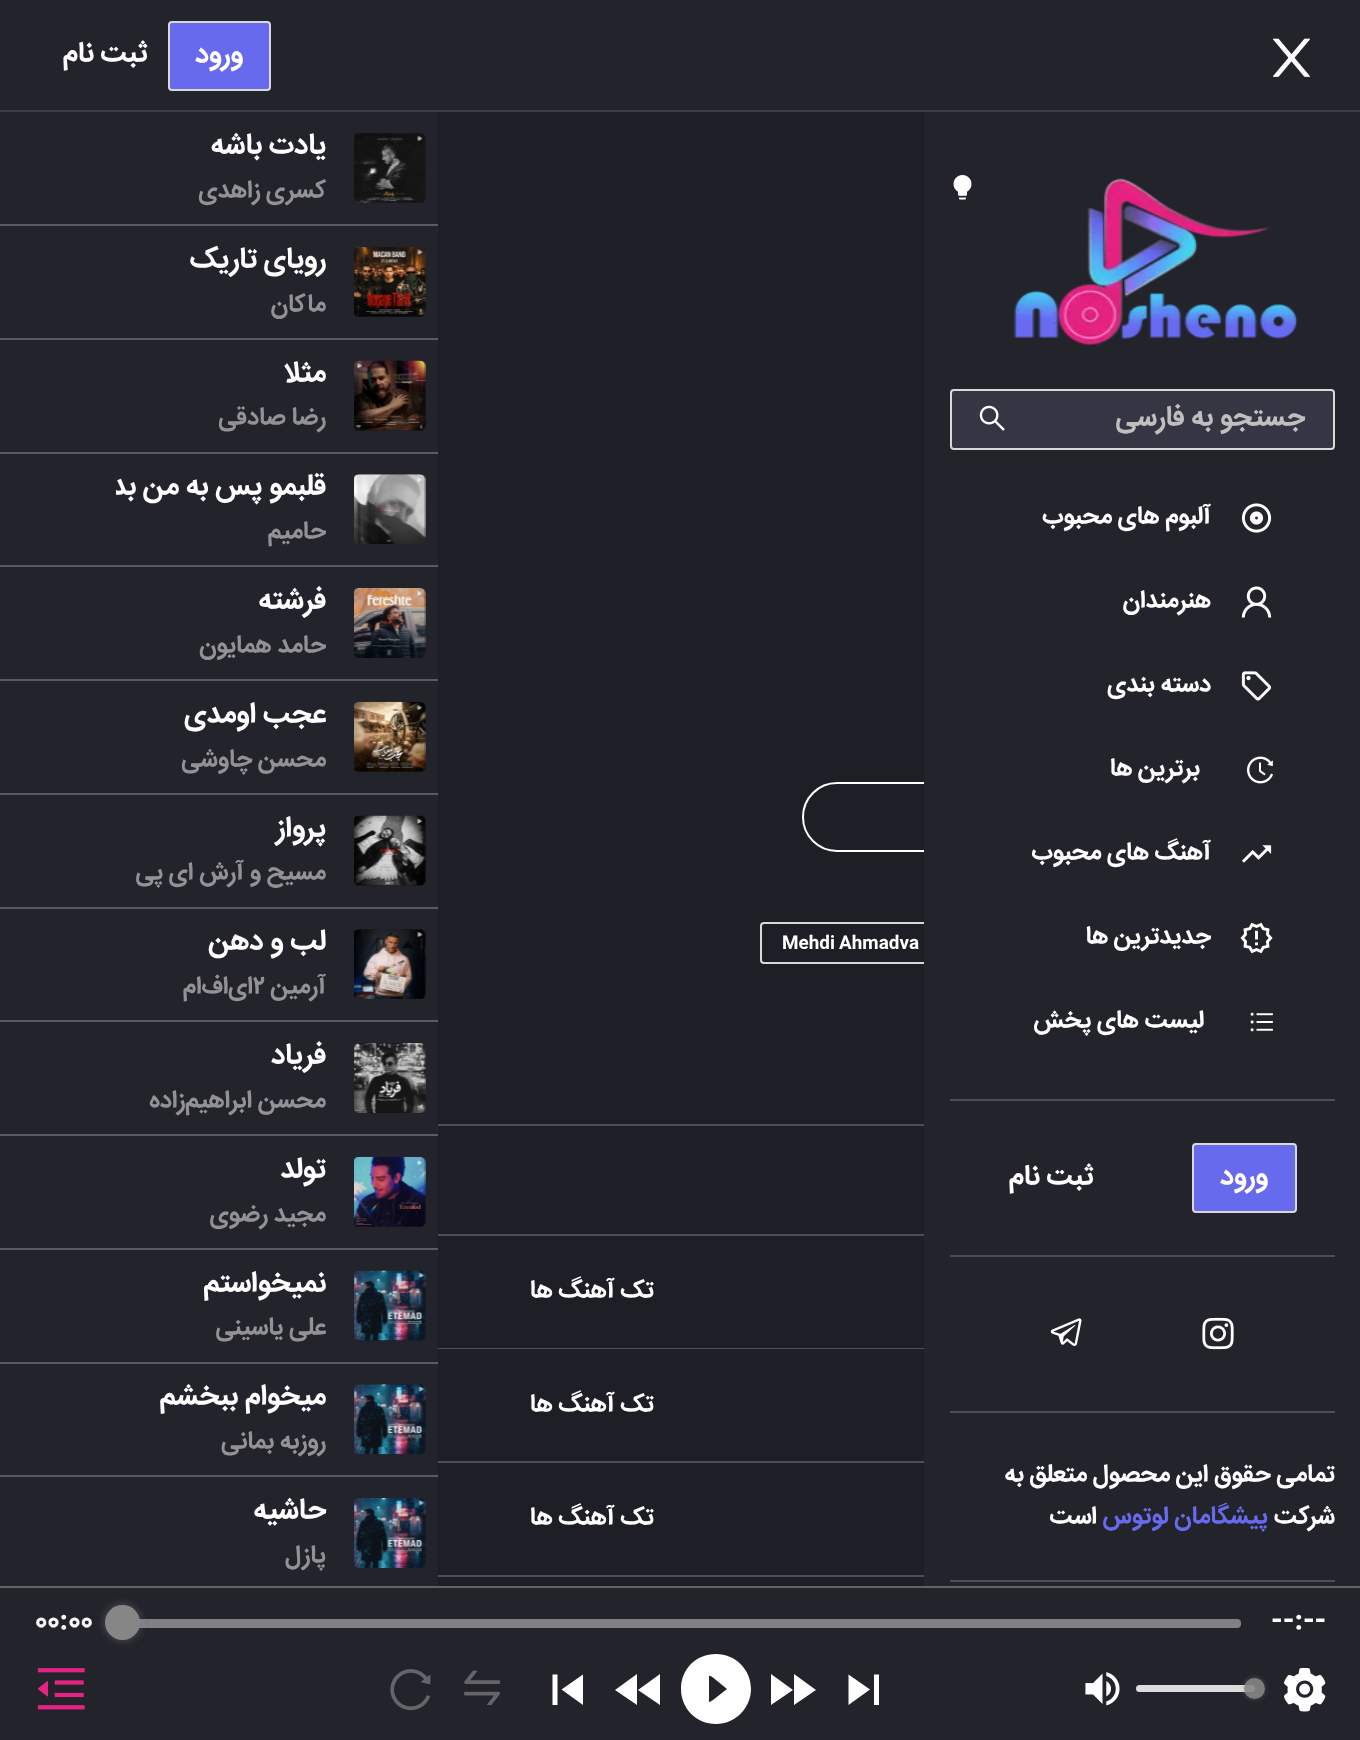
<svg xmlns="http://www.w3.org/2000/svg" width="1360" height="1740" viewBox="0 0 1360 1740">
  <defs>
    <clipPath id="clip1"><path d="M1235 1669H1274V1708H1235ZM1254.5 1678C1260.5 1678 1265 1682.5 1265 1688.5C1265 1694.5 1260.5 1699 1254.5 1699C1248.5 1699 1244 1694.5 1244 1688.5C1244 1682.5 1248.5 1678 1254.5 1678Z" clip-rule="evenodd"/></clipPath>
    <clipPath id="clip2"><path d="M116 466h210v47H116z"/></clipPath>
  </defs>
  <rect width="100%" height="100%" fill="#1e1e26"/>
  <path d="M0 0h1360v110H0z" fill="#23232c"/>
  <path d="M0 110h1360v2H0z" fill="#3d3d45"/>
  <image x="1273" y="38" width="37" height="39" href="img/1.png"/>
  <rect x="169" y="22" width="101" height="68" rx="3" fill="#686aee" stroke="#d9d9d9" stroke-width="2"/>
  <rect x="803" y="783" width="225" height="68" rx="34" fill="none" stroke="#fff" stroke-width="2"/>
  <rect x="761" y="923" width="201" height="40" rx="3" fill="none" stroke="#d9d9d9" stroke-width="2"/>
  <path d="M924 112h436v1474H924z" fill="#23232c"/>
  <image x="1013" y="178" width="285" height="168" href="img/2.png"/>
  <image x="953" y="175" width="19" height="25" href="img/3.png"/>
  <rect x="951" y="390" width="383" height="59" rx="3" fill="#353543" stroke="#d9d9d9" stroke-width="2"/>
  <image x="979" y="405" width="26" height="26" href="img/4.png"/>
  <image x="1241" y="503" width="31" height="30" href="img/5.png"/>
  <image x="1241" y="586" width="31" height="32" href="img/6.png"/>
  <image x="1241" y="671" width="31" height="30" href="img/7.png"/>
  <image x="1247" y="756" width="26" height="28" href="img/8.png"/>
  <image x="1242" y="845" width="30" height="18" href="img/9.png"/>
  <image x="1240" y="922" width="33" height="32" href="img/10.png"/>
  <image x="1250" y="1012" width="23" height="20" href="img/11.png"/>
  <path d="M950 1099h385v2H950z" fill="#4d4d54"/>
  <rect x="1193" y="1144" width="103" height="68" rx="3" fill="#686aee" stroke="#d9d9d9" stroke-width="2"/>
  <path d="M950 1255h385v2H950z" fill="#4d4d54"/>
  <image x="1202" y="1317" width="32" height="33" href="img/12.png"/>
  <image x="1050" y="1318" width="32" height="28" href="img/13.png"/>
  <path d="M950 1411h385v2H950z" fill="#4d4d54"/>
  <path d="M950 1580h385v2H950z" fill="#4d4d54"/>
  <path d="M0 112h438v1474H0z" fill="#23232c"/>
  <path d="M0 224h438v2H0z" fill="#5a5a61"/>
  <image x="354" y="133" width="72" height="70" href="img/14.png"/>
  <path d="M0 338h438v2H0z" fill="#5a5a61"/>
  <rect x="354" y="247" width="71" height="70" rx="5" fill="#1c1c24"/>
  <image x="354" y="246" width="72" height="71" href="img/15.png"/>
  <path d="M0 452h438v2H0z" fill="#5a5a61"/>
  <rect x="354" y="361" width="71" height="70" rx="5" fill="#1c1c24"/>
  <image x="354" y="360" width="72" height="71" href="img/16.png"/>
  <path d="M0 565h438v2H0z" fill="#5a5a61"/>
  <rect x="354" y="474" width="71" height="70" rx="5" fill="#1c1c24"/>
  <image x="354" y="474" width="72" height="70" href="img/17.png"/>
  <path d="M0 679h438v2H0z" fill="#5a5a61"/>
  <image x="354" y="588" width="72" height="70" href="img/18.png"/>
  <path d="M0 793h438v2H0z" fill="#5a5a61"/>
  <rect x="354" y="702" width="71" height="70" rx="5" fill="#1c1c24"/>
  <image x="354" y="701" width="72" height="71" href="img/19.png"/>
  <path d="M0 907h438v2H0z" fill="#5a5a61"/>
  <rect x="354" y="816" width="71" height="70" rx="5" fill="#1c1c24"/>
  <image x="354" y="815" width="72" height="71" href="img/20.png"/>
  <path d="M0 1020h438v2H0z" fill="#5a5a61"/>
  <rect x="354" y="929" width="71" height="70" rx="5" fill="#1c1c24"/>
  <image x="354" y="929" width="72" height="70" href="img/21.png"/>
  <path d="M0 1134h438v2H0z" fill="#5a5a61"/>
  <image x="354" y="1043" width="72" height="70" href="img/22.png"/>
  <path d="M0 1248h438v2H0z" fill="#5a5a61"/>
  <rect x="354" y="1157" width="71" height="70" rx="5" fill="#1c1c24"/>
  <image x="354" y="1156" width="72" height="71" href="img/23.png"/>
  <path d="M0 1362h438v2H0z" fill="#5a5a61"/>
  <rect x="354" y="1271" width="71" height="70" rx="5" fill="#1c1c24"/>
  <image x="354" y="1270" width="72" height="71" href="img/24.png"/>
  <path d="M0 1475h438v2H0z" fill="#5a5a61"/>
  <rect x="354" y="1384" width="71" height="70" rx="5" fill="#1c1c24"/>
  <image x="354" y="1384" width="72" height="71" href="img/25.png"/>
  <image x="354" y="1498" width="72" height="70" href="img/26.png"/>
  <path d="M438 1124h486v2H438z" fill="#4e4e54"/>
  <path d="M438 1234h486v2H438z" fill="#4e4e54"/>
  <path d="M438 1348h486v1H438z" fill="#4e4e54"/>
  <path d="M438 1461h486v2H438z" fill="#4e4e54"/>
  <path d="M438 1575h486v2H438z" fill="#4e4e54"/>
  <path d="M0 1588h1360v152H0z" fill="#23232c"/>
  <path d="M0 1586h1360v2H0z" fill="#636363"/>
  <rect x="123" y="1619" width="1118" height="9" rx="4" fill="#818185"/>
  <rect x="105" y="1605" width="35" height="35" rx="17.5" fill="#87878780" filter="blur(4.5px)"/>
  <circle cx="122.5" cy="1622.5" r="17.5" fill="#868686"/>
  <image x="1284" y="1668" width="42" height="44" href="img/27.png"/>
  <rect x="1136" y="1685" width="119" height="7" rx="3.5" fill="#ddd"/>
  <g clip-path="url(#clip1)">
    <rect x="1244" y="1678" width="21" height="21" rx="10.5" fill="#87878773" filter="blur(2.5px)"/>
  </g>
  <circle cx="1254.5" cy="1688.5" r="10.5" fill="#868686e6"/>
  <image x="1085" y="1672" width="35" height="34" href="img/28.png"/>
  <path d="M874 1705H879V1674.5H874M848.5 1705L870 1689.5L848.5 1674.5Z" fill="#fff"/>
  <path d="M794 1674V1705L816 1690M771 1705L793 1690L771 1674Z" fill="#fff"/>
  <path d="M716 1654C696 1654 681 1669 681 1689C681 1708 696 1724 716 1724C735 1724 751 1708 751 1689C751 1669 735 1654 716 1654ZM727 1689L713 1700C708 1703 709 1703 709 1697V1676C710 1675 715 1679 716 1680Z" fill="#fff"/>
  <path d="M638 1690L660 1705V1674M637 1705V1674L615 1690Z" fill="#fff"/>
  <path d="M552.5 1705V1674.5H557.5V1705H552.5M561.5 1689.5L583 1674.5V1705Z" fill="#fff"/>
  <image x="464" y="1670" width="37" height="35" href="img/29.png"/>
  <image x="390" y="1669" width="41" height="42" href="img/30.png"/>
  <image x="37" y="1668" width="48" height="42" href="img/31.png"/>
  <g font-family="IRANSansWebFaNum" font-size="28" font-weight="bold" direction="rtl" fill="#fff">
    <text x="243" y="62">ورود</text>
    <text x="148" y="61">ثبت نام</text>
  </g>
  <text x="1305" y="425" font-family="IRANSansWebFaNum" font-size="28" font-weight="bold" direction="rtl" fill="#bfbfbf">جستجو به فارسی</text>
  <g font-family="IRANSansWebFaNum" font-size="24.5" font-weight="bold" direction="rtl" fill="#fff">
    <text x="1211" y="523">آلبوم های محبوب</text>
    <text x="1211" y="607">هنرمندان</text>
    <text x="1211" y="691">دسته بندی</text>
    <text x="1200" y="775">برترین ها</text>
    <text x="1211" y="859">آهنگ های محبوب</text>
    <text x="1211" y="943">جدیدترین ها</text>
    <text x="1204" y="1027">لیست های پخش</text>
  </g>
  <g font-family="IRANSansWebFaNum" font-size="28" font-weight="bold" direction="rtl" fill="#fff">
    <text x="1268" y="1184">ورود</text>
    <text x="1094" y="1184">ثبت نام</text>
  </g>
  <g font-family="IRANSansWebFaNum" font-size="24.5" font-weight="bold" direction="rtl" fill="#fff">
    <text x="1335" y="1481">تمامی حقوق این محصول متعلق به</text>
    <text x="1335" y="1523">شرکت</text>
  </g>
  <text x="1268" y="1523" font-family="IRANSansWebFaNum" font-size="24.5" font-weight="bold" direction="rtl" fill="#686aee">پیشگامان لوتوس</text>
  <text x="1097" y="1523" font-family="IRANSansWebFaNum" font-size="24.5" font-weight="bold" direction="rtl" fill="#fff">است</text>
  <text x="326" y="153" font-family="IRANSansWebFaNum" font-size="28.75" font-weight="bold" direction="rtl" fill="#fff">یادت باشه</text>
  <text x="326" y="197" font-family="IRANSansWebFaNum" font-size="24.5" font-weight="bold" direction="rtl" fill="#919196">کسری زاهدی</text>
  <text x="326" y="267" font-family="IRANSansWebFaNum" font-size="28.75" font-weight="bold" direction="rtl" fill="#fff">رویای تاریک</text>
  <text x="326" y="311" font-family="IRANSansWebFaNum" font-size="24.5" font-weight="bold" direction="rtl" fill="#919196">ماکان</text>
  <text x="326" y="381" font-family="IRANSansWebFaNum" font-size="28.75" font-weight="bold" direction="rtl" fill="#fff">مثلا</text>
  <text x="326" y="424" font-family="IRANSansWebFaNum" font-size="24.5" font-weight="bold" direction="rtl" fill="#919196">رضا صادقی</text>
  <g clip-path="url(#clip2)">
    <text x="326" y="494" font-family="IRANSansWebFaNum" font-size="28.75" font-weight="bold" direction="rtl" fill="#fff">قلبمو پس به من بده</text>
  </g>
  <text x="326" y="538" font-family="IRANSansWebFaNum" font-size="24.5" font-weight="bold" direction="rtl" fill="#919196">حامیم</text>
  <text x="326" y="608" font-family="IRANSansWebFaNum" font-size="28.75" font-weight="bold" direction="rtl" fill="#fff">فرشته</text>
  <text x="326" y="652" font-family="IRANSansWebFaNum" font-size="24.5" font-weight="bold" direction="rtl" fill="#919196">حامد همایون</text>
  <text x="326" y="722" font-family="IRANSansWebFaNum" font-size="28.75" font-weight="bold" direction="rtl" fill="#fff">عجب اومدی</text>
  <text x="326" y="766" font-family="IRANSansWebFaNum" font-size="24.5" font-weight="bold" direction="rtl" fill="#919196">محسن چاوشی</text>
  <text x="326" y="836" font-family="IRANSansWebFaNum" font-size="28.75" font-weight="bold" direction="rtl" fill="#fff">پرواز</text>
  <text x="326" y="879" font-family="IRANSansWebFaNum" font-size="24.5" font-weight="bold" direction="rtl" fill="#919196">مسیح و آرش ای پی</text>
  <text x="326" y="949" font-family="IRANSansWebFaNum" font-size="28.75" font-weight="bold" direction="rtl" fill="#fff">لب و دهن</text>
  <text x="326" y="993" font-family="IRANSansWebFaNum" font-size="24.5" font-weight="bold" direction="rtl" fill="#919196">آرمین</text>
  <text x="253" y="993" font-family="IRANSansWebFaNum" font-size="24.5" font-weight="bold" fill="#919196">۲</text>
  <text x="253" y="993" font-family="IRANSansWebFaNum" font-size="24.5" font-weight="bold" direction="rtl" fill="#919196">ای‌اف‌ام</text>
  <text x="326" y="1063" font-family="IRANSansWebFaNum" font-size="28.75" font-weight="bold" direction="rtl" fill="#fff">فریاد</text>
  <text x="326" y="1107" font-family="IRANSansWebFaNum" font-size="24.5" font-weight="bold" direction="rtl" fill="#919196">محسن ابراهیم‌زاده</text>
  <text x="326" y="1177" font-family="IRANSansWebFaNum" font-size="28.75" font-weight="bold" direction="rtl" fill="#fff">تولد</text>
  <text x="326" y="1221" font-family="IRANSansWebFaNum" font-size="24.5" font-weight="bold" direction="rtl" fill="#919196">مجید رضوی</text>
  <text x="326" y="1291" font-family="IRANSansWebFaNum" font-size="28.75" font-weight="bold" direction="rtl" fill="#fff">نمیخواستم</text>
  <text x="326" y="1334" font-family="IRANSansWebFaNum" font-size="24.5" font-weight="bold" direction="rtl" fill="#919196">علی یاسینی</text>
  <text x="326" y="1404" font-family="IRANSansWebFaNum" font-size="28.75" font-weight="bold" direction="rtl" fill="#fff">میخوام ببخشم</text>
  <text x="326" y="1448" font-family="IRANSansWebFaNum" font-size="24.5" font-weight="bold" direction="rtl" fill="#919196">روزبه بمانی</text>
  <text x="326" y="1518" font-family="IRANSansWebFaNum" font-size="28.75" font-weight="bold" direction="rtl" fill="#fff">حاشیه</text>
  <text x="326" y="1562" font-family="IRANSansWebFaNum" font-size="24.5" font-weight="bold" direction="rtl" fill="#919196">پازل</text>
  <text x="782" y="948" font-family="IRANSansWebFaNum" font-size="17.5" font-weight="bold" fill="#fff">Mehdi Ahmadva</text>
  <g font-family="IRANSansWebFaNum" font-size="24.5" font-weight="bold" direction="rtl" fill="#fff">
    <text x="654" y="1297">تک آهنگ ها</text>
    <text x="654" y="1411">تک آهنگ ها</text>
    <text x="654" y="1524">تک آهنگ ها</text>
  </g>
  <g font-family="IRANSansWebFaNum" font-size="28" font-weight="bold" fill="#fff">
    <text x="1271" y="1628">--:--</text>
    <text x="35" y="1628">00:00</text>
  </g>
</svg>
